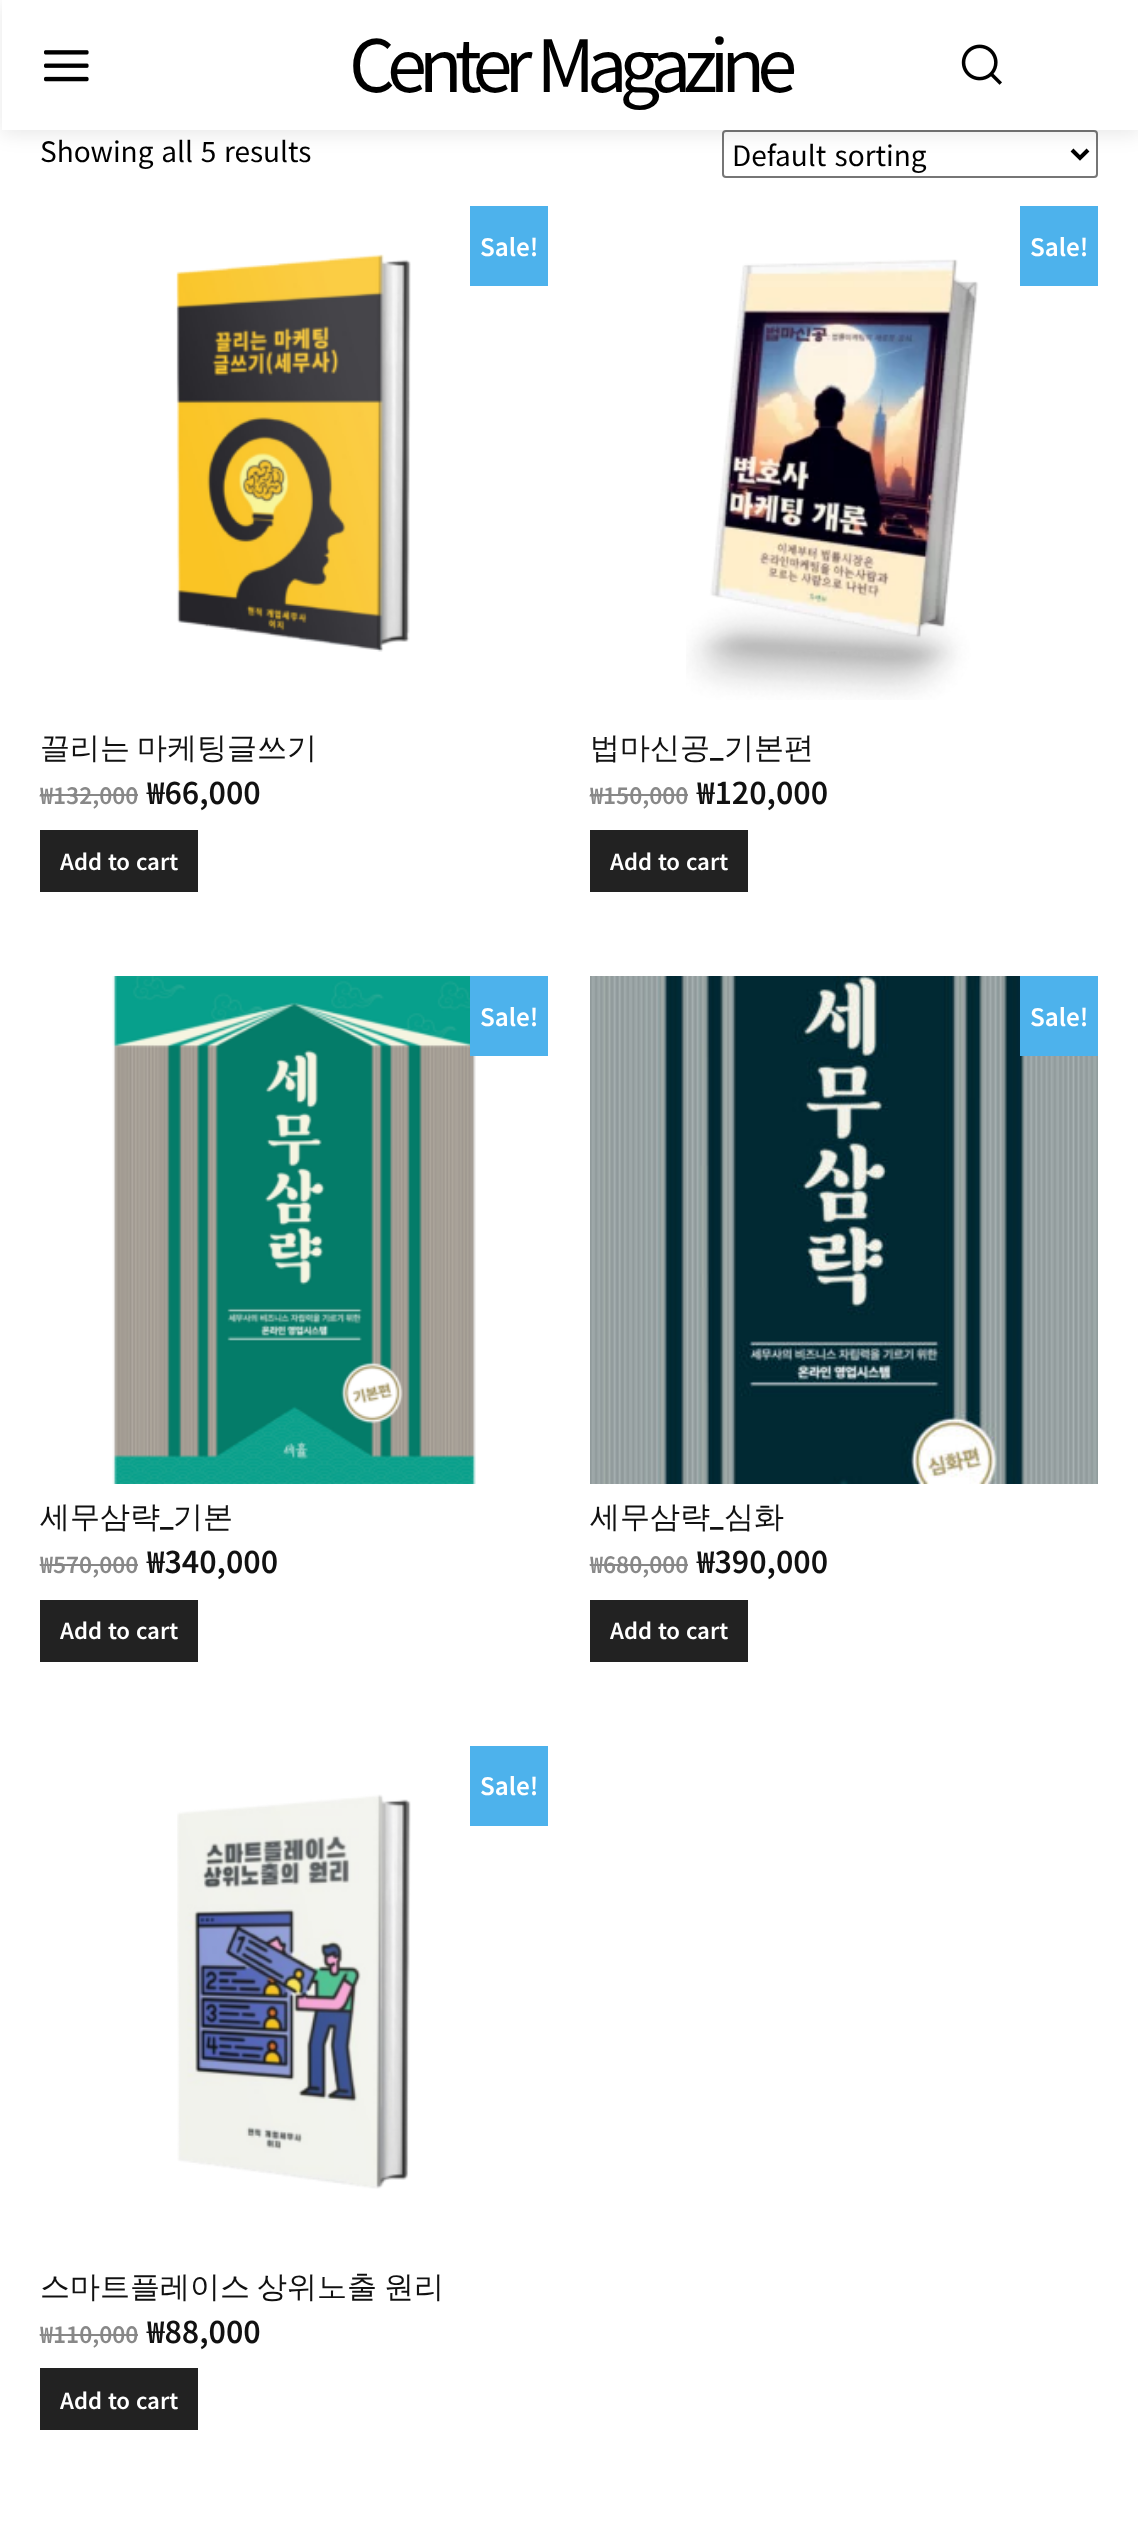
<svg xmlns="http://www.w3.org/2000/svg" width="1138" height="2535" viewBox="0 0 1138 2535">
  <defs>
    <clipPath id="clip1"><path d="M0 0H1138V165H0ZM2 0H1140V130H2Z" clip-rule="evenodd"/></clipPath>
  </defs>
  <rect width="100%" height="100%" fill="#fff"/>
  <image x="44" y="50" width="45" height="32" href="img/1.png"/>
  <image x="961" y="44" width="41" height="41" href="img/2.png"/>
  <rect x="723" y="131" width="374" height="46" rx="3" fill="none" stroke="#767676" stroke-width="2"/>
  <path d="M1072 150L1080 158L1088 150" fill="none" stroke="#000" stroke-width="4"/>
  <g clip-path="url(#clip1)">
    <path d="M2 4h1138v130H2z" fill="#00000017" filter="blur(10px)"/>
  </g>
  <path d="M470 206h78v80H470z" fill="#4db2ec"/>
  <image x="176" y="254" width="235" height="398" href="img/3.png"/>
  <path d="M40 794h98v2H40z" fill="#888"/>
  <path d="M40 830h158v62H40z" fill="#222"/>
  <path d="M1020 206h78v80H1020z" fill="#4db2ec"/>
  <image x="686" y="259" width="293" height="441" href="img/4.png"/>
  <path d="M590 794h98v2H590z" fill="#888"/>
  <path d="M590 830h158v62H590z" fill="#222"/>
  <image x="112" y="976" width="364" height="508" href="img/5.png"/>
  <path d="M470 976h78v80H470z" fill="#4db2ec"/>
  <path d="M40 1564h14v2H40z" fill="#888"/>
  <path d="M54 1564h84v2H54z" fill="#888"/>
  <path d="M40 1600h158v62H40z" fill="#222"/>
  <image x="590" y="976" width="508" height="508" href="img/6.png"/>
  <path d="M1020 976h78v80H1020z" fill="#4db2ec"/>
  <path d="M590 1564h98v2H590z" fill="#888"/>
  <path d="M590 1600h158v62H590z" fill="#222"/>
  <path d="M470 1746h78v80H470z" fill="#4db2ec"/>
  <image x="177" y="1794" width="234" height="395" href="img/7.png"/>
  <path d="M40 2334h98v2H40z" fill="#888"/>
  <path d="M40 2368h158v62H40z" fill="#222"/>
  <text x="349" y="92" word-spacing="4" font-family="Noto Sans KR" font-size="72" letter-spacing="-8" fill="#000">Center Magazine</text>
  <g font-family="Noto Sans KR" font-size="28" fill="#000">
    <text x="40" y="162" word-spacing="1.5">Showing all 5 results</text>
    <text x="732" y="166" word-spacing="2">Default sorting</text>
  </g>
  <text x="480" y="256" font-family="Noto Sans KR" font-size="24" font-weight="600" fill="#fff">Sale!</text>
  <text x="40" y="758" word-spacing="-2" font-family="WenQuanYi Zen Hei" font-size="30" font-weight="500" fill="#111">끌리는 마케팅글쓰기</text>
  <text x="40" y="804" font-family="Noto Sans KR" font-size="22.5" font-weight="600" fill="#888">₩132,000</text>
  <text x="147" y="804" font-family="Noto Sans KR" font-size="30" font-weight="600" fill="#111">₩66,000</text>
  <text x="60" y="870" word-spacing="1" font-family="Noto Sans KR" font-size="22" font-weight="600" fill="#fff">Add to cart</text>
  <text x="1030" y="256" font-family="Noto Sans KR" font-size="24" font-weight="600" fill="#fff">Sale!</text>
  <text x="590" y="758" font-family="WenQuanYi Zen Hei" font-size="30" font-weight="500" fill="#111">법마신공</text>
  <text x="710" y="758" font-family="Roboto" font-size="30" font-weight="500" fill="#111">_</text>
  <text x="724" y="758" font-family="WenQuanYi Zen Hei" font-size="30" font-weight="500" fill="#111">기본편</text>
  <text x="590" y="804" font-family="Noto Sans KR" font-size="22.5" font-weight="600" fill="#888">₩150,000</text>
  <text x="697" y="804" font-family="Noto Sans KR" font-size="30" font-weight="600" fill="#111">₩120,000</text>
  <text x="610" y="870" word-spacing="1" font-family="Noto Sans KR" font-size="22" font-weight="600" fill="#fff">Add to cart</text>
  <text x="480" y="1026" font-family="Noto Sans KR" font-size="24" font-weight="600" fill="#fff">Sale!</text>
  <text x="40" y="1527" font-family="WenQuanYi Zen Hei" font-size="30" font-weight="500" fill="#111">세무삼략</text>
  <text x="160" y="1527" font-family="Roboto" font-size="30" font-weight="500" fill="#111">_</text>
  <text x="173" y="1527" font-family="WenQuanYi Zen Hei" font-size="30" font-weight="500" fill="#111">기본</text>
  <g font-family="Noto Sans KR" font-size="22.5" font-weight="600" fill="#888">
    <text x="40" y="1573">₩</text>
    <text x="53" y="1573">570,000</text>
  </g>
  <text x="147" y="1573" font-family="Noto Sans KR" font-size="30" font-weight="600" fill="#111">₩340,000</text>
  <text x="60" y="1639" word-spacing="1" font-family="Noto Sans KR" font-size="22" font-weight="600" fill="#fff">Add to cart</text>
  <text x="1030" y="1026" font-family="Noto Sans KR" font-size="24" font-weight="600" fill="#fff">Sale!</text>
  <text x="590" y="1527" font-family="WenQuanYi Zen Hei" font-size="30" font-weight="500" fill="#111">세무삼략</text>
  <text x="710" y="1527" font-family="Roboto" font-size="30" font-weight="500" fill="#111">_</text>
  <text x="724" y="1527" font-family="WenQuanYi Zen Hei" font-size="30" font-weight="500" fill="#111">심화</text>
  <text x="590" y="1573" font-family="Noto Sans KR" font-size="22.5" font-weight="600" fill="#888">₩680,000</text>
  <text x="697" y="1573" font-family="Noto Sans KR" font-size="30" font-weight="600" fill="#111">₩390,000</text>
  <text x="610" y="1639" word-spacing="1" font-family="Noto Sans KR" font-size="22" font-weight="600" fill="#fff">Add to cart</text>
  <text x="480" y="1795" font-family="Noto Sans KR" font-size="24" font-weight="600" fill="#fff">Sale!</text>
  <text x="40" y="2297" word-spacing="-2" font-family="WenQuanYi Zen Hei" font-size="30" font-weight="500" fill="#111">스마트플레이스 상위노출 원리</text>
  <text x="40" y="2343" font-family="Noto Sans KR" font-size="22.5" font-weight="600" fill="#888">₩110,000</text>
  <text x="147" y="2343" font-family="Noto Sans KR" font-size="30" font-weight="600" fill="#111">₩88,000</text>
  <text x="60" y="2409" word-spacing="1" font-family="Noto Sans KR" font-size="22" font-weight="600" fill="#fff">Add to cart</text>
</svg>
